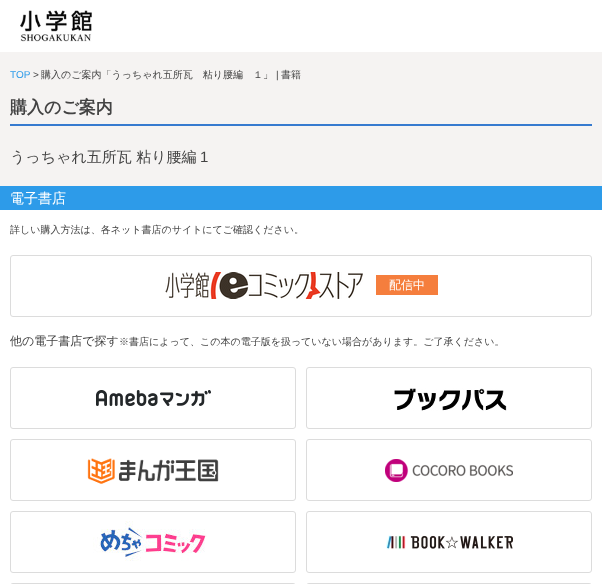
<svg xmlns="http://www.w3.org/2000/svg" width="602" height="584" viewBox="0 0 602 584">
  <rect width="100%" height="100%" fill="#f5f3f2"/>
  <path d="M0 0h602v52H0z" fill="#fff"/>
  <image x="20" y="10" width="72" height="32" href="img/1.png"/>
  <path d="M10 124h582v2H10z" fill="#367acf"/>
  <path d="M0 210h602v374H0z" fill="#fff"/>
  <path d="M0 186h602v24H0z" fill="#2d9be9"/>
  <rect x="10.5" y="255.5" width="581" height="61" rx="2.5" fill="none" stroke="#dcdcdc"/>
  <image x="165" y="272" width="198" height="27" href="img/2.png"/>
  <path d="M376 275h62v20H376z" fill="#f57e3d"/>
  <rect x="10.5" y="367.5" width="285" height="61" rx="2.5" fill="none" stroke="#dcdcdc"/>
  <image x="96" y="390" width="115" height="16" href="img/3.png"/>
  <rect x="306.5" y="367.5" width="285" height="61" rx="2.5" fill="none" stroke="#dcdcdc"/>
  <image x="394" y="388" width="113" height="23" href="img/4.png"/>
  <rect x="10.5" y="439.5" width="285" height="61" rx="2.5" fill="none" stroke="#dcdcdc"/>
  <image x="87" y="458" width="132" height="26" href="img/5.png"/>
  <rect x="306.5" y="439.5" width="285" height="61" rx="2.5" fill="none" stroke="#dcdcdc"/>
  <image x="385" y="459" width="128" height="23" href="img/6.png"/>
  <rect x="10.5" y="511.5" width="285" height="61" rx="2.5" fill="none" stroke="#dcdcdc"/>
  <image x="93" y="521" width="114" height="40" href="img/7.png"/>
  <rect x="306.5" y="511.5" width="285" height="61" rx="2.5" fill="none" stroke="#dcdcdc"/>
  <image x="386" y="535" width="127" height="15" href="img/8.png"/>
  <rect x="10.5" y="583.5" width="285" height="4" rx="2.5" fill="none" stroke="#dcdcdc"/>
  <rect x="306.5" y="583.5" width="285" height="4" rx="2.5" fill="none" stroke="#dcdcdc"/>
  <text x="10" y="78" font-family="Liberation Sans" font-size="10" fill="#2d9be9">TOP</text>
  <text x="33" y="78" font-family="Liberation Sans" font-size="10" fill="#434343">&gt;</text>
  <text x="41" y="78" font-family="WenQuanYi Zen Hei" font-size="10" font-weight="500" fill="#434343">購入のご案内「うっちゃれ五所瓦　粘り腰編　１」</text>
  <text x="276" y="78" font-family="Liberation Sans" font-size="10" fill="#434343">|</text>
  <text x="281" y="78" font-family="WenQuanYi Zen Hei" font-size="10" font-weight="500" fill="#434343">書籍</text>
  <text x="10" y="113" font-family="WenQuanYi Zen Hei" font-size="17" font-weight="bold" fill="#434343">購入のご案内</text>
  <text x="10" y="162" font-family="WenQuanYi Zen Hei" font-size="15" font-weight="500" fill="#434343">うっちゃれ五所瓦 粘り腰編</text>
  <text x="200" y="162" font-family="Liberation Sans" font-size="15" fill="#434343">1</text>
  <text x="10" y="203" font-family="WenQuanYi Zen Hei" font-size="14" font-weight="500" fill="#fff">電子書店</text>
  <text x="10" y="233" font-family="WenQuanYi Zen Hei" font-size="10" font-weight="500" fill="#434343">詳しい購入方法は、各ネット書店のサイトにてご確認ください。</text>
  <text x="389" y="289" font-family="WenQuanYi Zen Hei" font-size="12" font-weight="500" fill="#fff">配信中</text>
  <text x="10" y="345" font-family="WenQuanYi Zen Hei" font-size="12" font-weight="500" fill="#434343">他の電子書店で探す</text>
  <text x="119" y="345" font-family="WenQuanYi Zen Hei" font-size="10" font-weight="500" fill="#434343">※書店によって、この本の電子版を扱っていない場合があります。ご了承ください。</text>
</svg>
